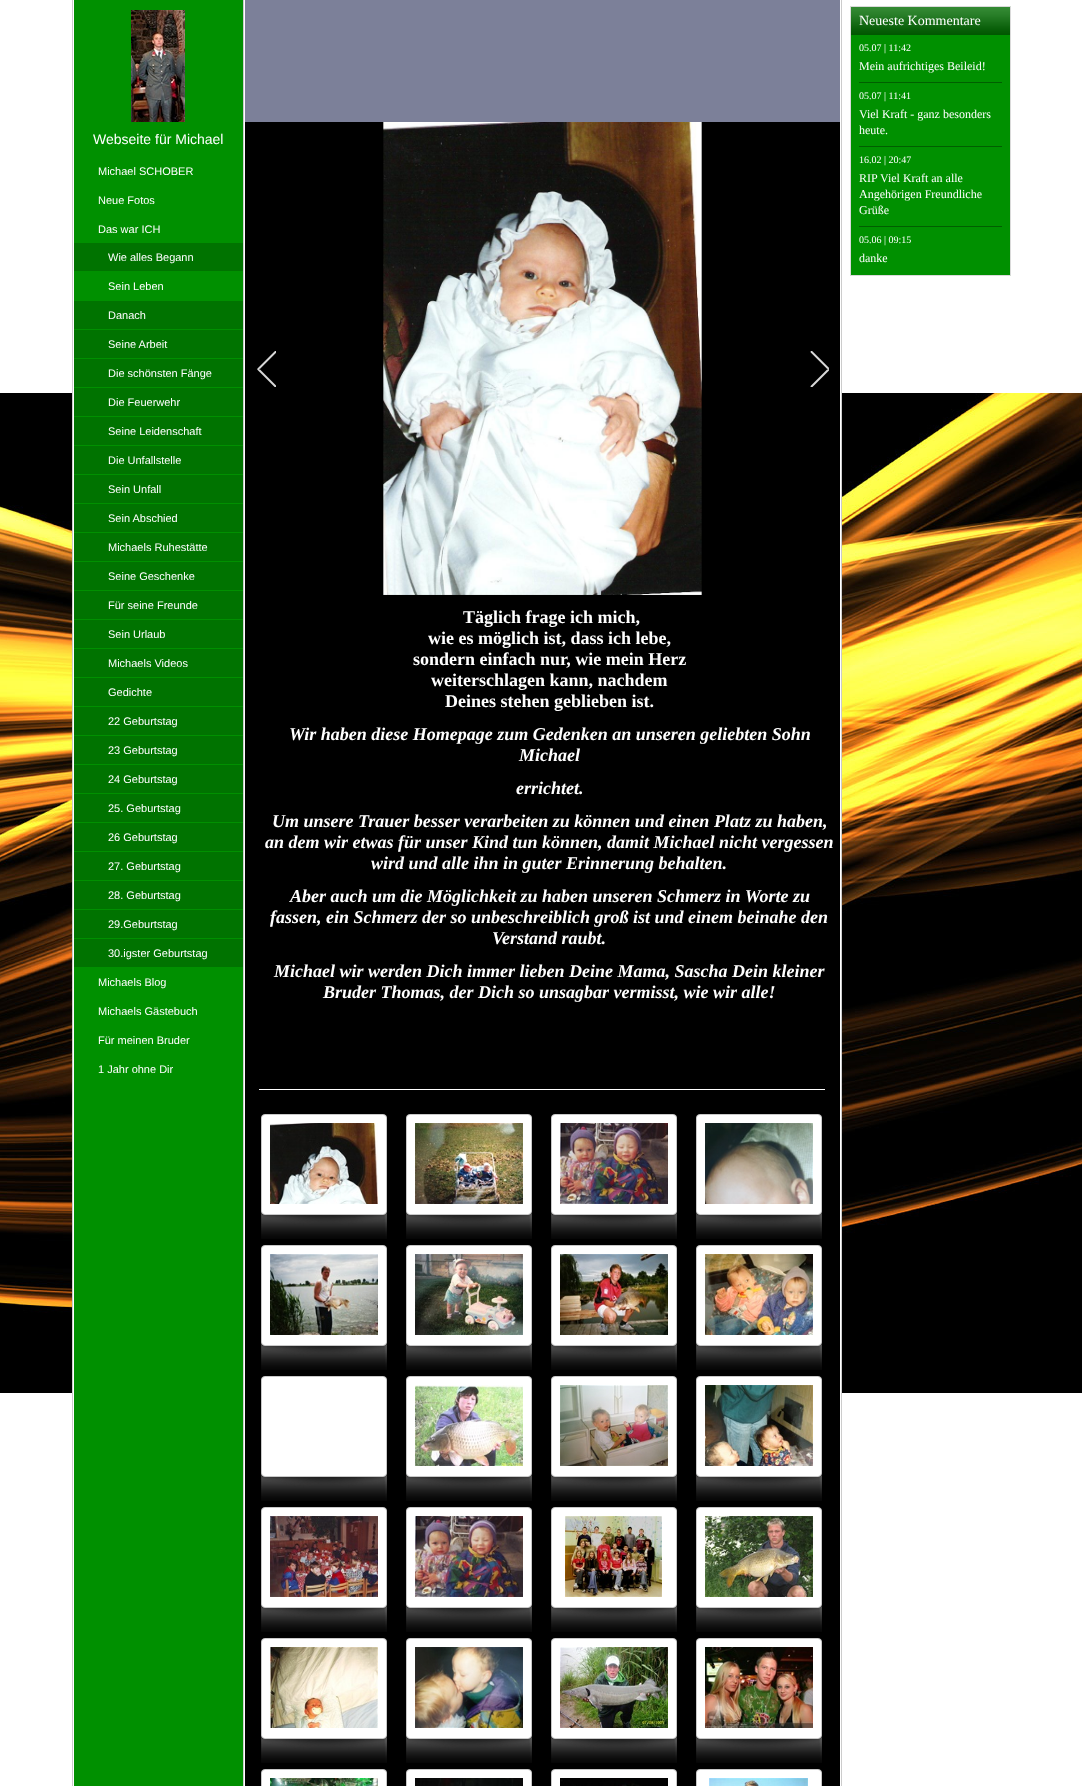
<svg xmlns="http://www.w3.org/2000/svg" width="1082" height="1786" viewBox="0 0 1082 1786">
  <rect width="100%" height="100%" fill="#fff"/>
  <image x="0" y="393" width="1082" height="1000" href="img/32.png"/>
  <path d="M73 393h768v1000H73z" fill="#fff"/>
  <path d="M72 0h1v1786H72z" fill="#ccc"/>
  <path d="M74 0h169v1786H74z" fill="#009000"/>
  <image x="131" y="10" width="54" height="112" href="img/1.png"/>
  <path d="M74 243h169v28H74z" fill="#007300"/>
  <path d="M74 301h169v28H74z" fill="#007300"/>
  <path d="M74 330h169v28H74z" fill="#007300"/>
  <path d="M74 359h169v28H74z" fill="#007300"/>
  <path d="M74 388h169v28H74z" fill="#007300"/>
  <path d="M74 417h169v28H74z" fill="#007300"/>
  <path d="M74 446h169v28H74z" fill="#007300"/>
  <path d="M74 475h169v28H74z" fill="#007300"/>
  <path d="M74 504h169v28H74z" fill="#007300"/>
  <path d="M74 533h169v28H74z" fill="#007300"/>
  <path d="M74 562h169v28H74z" fill="#007300"/>
  <path d="M74 591h169v28H74z" fill="#007300"/>
  <path d="M74 620h169v28H74z" fill="#007300"/>
  <path d="M74 649h169v28H74z" fill="#007300"/>
  <path d="M74 678h169v28H74z" fill="#007300"/>
  <path d="M74 707h169v28H74z" fill="#007300"/>
  <path d="M74 736h169v28H74z" fill="#007300"/>
  <path d="M74 765h169v28H74z" fill="#007300"/>
  <path d="M74 794h169v28H74z" fill="#007300"/>
  <path d="M74 823h169v28H74z" fill="#007300"/>
  <path d="M74 852h169v28H74z" fill="#007300"/>
  <path d="M74 881h169v28H74z" fill="#007300"/>
  <path d="M74 910h169v28H74z" fill="#007300"/>
  <path d="M74 939h169v28H74z" fill="#007300"/>
  <path d="M243 0h1v1786H243z" fill="#ccc"/>
  <path d="M245 122h595v1664H245z" fill="#000"/>
  <path d="M245 0h595v122H245z" fill="#7c8099"/>
  <image x="257" y="351" width="19" height="36" href="img/2.png"/>
  <image x="383" y="122" width="319" height="473" href="img/3.png"/>
  <image x="810" y="351" width="19" height="36" href="img/4.png"/>
  <path d="M259 1089h566v1H259z" fill="#fff"/>
  <image x="261" y="1114" width="126" height="125" href="img/5.png"/>
  <image x="270" y="1123" width="108" height="81" href="img/6.png"/>
  <image x="406" y="1114" width="126" height="125" href="img/5.png"/>
  <image x="415" y="1123" width="108" height="81" href="img/7.png"/>
  <image x="551" y="1114" width="126" height="125" href="img/5.png"/>
  <image x="560" y="1123" width="108" height="81" href="img/8.png"/>
  <image x="696" y="1114" width="126" height="125" href="img/5.png"/>
  <image x="705" y="1123" width="108" height="81" href="img/9.png"/>
  <image x="261" y="1245" width="126" height="125" href="img/5.png"/>
  <image x="270" y="1254" width="108" height="81" href="img/10.png"/>
  <image x="406" y="1245" width="126" height="125" href="img/5.png"/>
  <image x="415" y="1254" width="108" height="81" href="img/11.png"/>
  <image x="551" y="1245" width="126" height="125" href="img/5.png"/>
  <image x="560" y="1254" width="108" height="81" href="img/12.png"/>
  <image x="696" y="1245" width="126" height="125" href="img/5.png"/>
  <image x="705" y="1254" width="108" height="81" href="img/13.png"/>
  <image x="261" y="1376" width="126" height="125" href="img/5.png"/>
  <image x="406" y="1376" width="126" height="125" href="img/5.png"/>
  <image x="415" y="1385" width="108" height="81" href="img/14.png"/>
  <image x="551" y="1376" width="126" height="125" href="img/5.png"/>
  <image x="560" y="1385" width="108" height="81" href="img/15.png"/>
  <image x="696" y="1376" width="126" height="125" href="img/5.png"/>
  <image x="705" y="1385" width="108" height="81" href="img/16.png"/>
  <image x="261" y="1507" width="126" height="125" href="img/5.png"/>
  <image x="270" y="1516" width="108" height="81" href="img/17.png"/>
  <image x="406" y="1507" width="126" height="125" href="img/5.png"/>
  <image x="415" y="1516" width="108" height="81" href="img/18.png"/>
  <image x="551" y="1507" width="126" height="125" href="img/5.png"/>
  <image x="565" y="1516" width="97" height="81" href="img/19.png"/>
  <image x="696" y="1507" width="126" height="125" href="img/5.png"/>
  <image x="705" y="1516" width="108" height="81" href="img/20.png"/>
  <image x="261" y="1638" width="126" height="125" href="img/5.png"/>
  <image x="270" y="1647" width="108" height="81" href="img/21.png"/>
  <image x="406" y="1638" width="126" height="125" href="img/5.png"/>
  <image x="415" y="1647" width="108" height="81" href="img/22.png"/>
  <image x="551" y="1638" width="126" height="125" href="img/5.png"/>
  <image x="560" y="1647" width="108" height="81" href="img/23.png"/>
  <image x="696" y="1638" width="126" height="125" href="img/5.png"/>
  <image x="705" y="1647" width="108" height="81" href="img/24.png"/>
  <image x="261" y="1769" width="126" height="17" href="img/25.png"/>
  <image x="270" y="1778" width="108" height="8" href="img/26.png"/>
  <image x="406" y="1769" width="126" height="17" href="img/25.png"/>
  <image x="415" y="1778" width="108" height="8" href="img/27.png"/>
  <image x="551" y="1769" width="126" height="17" href="img/25.png"/>
  <image x="560" y="1778" width="108" height="8" href="img/28.png"/>
  <image x="696" y="1769" width="126" height="17" href="img/25.png"/>
  <image x="709" y="1778" width="99" height="8" href="img/29.png"/>
  <path d="M841 0h1v1786H841z" fill="#ccc"/>
  <path d="M850.5 6.5h160v269H850.5z" fill="#009000" stroke="#dadada"/>
  <image x="851" y="7" width="159" height="28" href="img/30.png"/>
  <image x="859" y="82" width="143" height="1" href="img/31.png"/>
  <image x="859" y="146" width="143" height="1" href="img/31.png"/>
  <image x="859" y="226" width="143" height="1" href="img/31.png"/>
  <text x="93" y="144" font-family="Liberation Sans" font-size="14" fill="#fff">Webseite für Michael</text>
  <g font-family="Liberation Sans" font-size="11" fill="#fff">
    <text x="98" y="175">Michael SCHOBER</text>
    <text x="98" y="204">Neue Fotos</text>
    <text x="98" y="233">Das war ICH</text>
    <text x="108" y="261">Wie alles Begann</text>
    <text x="108" y="290">Sein Leben</text>
    <text x="108" y="319">Danach</text>
    <text x="108" y="348">Seine Arbeit</text>
    <text x="108" y="377">Die schönsten Fänge</text>
    <text x="108" y="406">Die Feuerwehr</text>
    <text x="108" y="435">Seine Leidenschaft</text>
    <text x="108" y="464">Die Unfallstelle</text>
    <text x="108" y="493">Sein Unfall</text>
    <text x="108" y="522">Sein Abschied</text>
    <text x="108" y="551">Michaels Ruhestätte</text>
    <text x="108" y="580">Seine Geschenke</text>
    <text x="108" y="609">Für seine Freunde</text>
    <text x="108" y="638">Sein Urlaub</text>
    <text x="108" y="667">Michaels Videos</text>
    <text x="108" y="696">Gedichte</text>
    <text x="108" y="725">22 Geburtstag</text>
    <text x="108" y="754">23 Geburtstag</text>
    <text x="108" y="783">24 Geburtstag</text>
    <text x="108" y="812">25. Geburtstag</text>
    <text x="108" y="841">26 Geburtstag</text>
    <text x="108" y="870">27. Geburtstag</text>
    <text x="108" y="899">28. Geburtstag</text>
    <text x="108" y="928">29.Geburtstag</text>
    <text x="108" y="957">30.igster Geburtstag</text>
    <text x="98" y="986">Michaels Blog</text>
    <text x="98" y="1015">Michaels Gästebuch</text>
    <text x="98" y="1044">Für meinen Bruder</text>
    <text x="98" y="1073">1 Jahr ohne Dir</text>
  </g>
  <g font-family="Liberation Serif" font-size="18" font-weight="bold" fill="#fff">
    <text x="463" y="623">Täglich frage ich mich,</text>
    <text x="428" y="644">wie es möglich ist, dass ich lebe,</text>
    <text x="413" y="665">sondern einfach nur, wie mein Herz</text>
    <text x="431" y="686">weiterschlagen kann, nachdem</text>
    <text x="445" y="707">Deines stehen geblieben ist.</text>
  </g>
  <g font-family="Liberation Serif" font-size="18" font-weight="bold" font-style="italic" fill="#fff">
    <text x="289" y="740">Wir haben diese Homepage zum Gedenken an unseren geliebten Sohn</text>
    <text x="519" y="761">Michael</text>
    <text x="516" y="794">errichtet.</text>
    <text x="272" y="827">Um unsere Trauer besser verarbeiten zu können und einen Platz zu haben,</text>
    <text x="265" y="848">an dem wir etwas für unser Kind tun können, damit Michael nicht vergessen</text>
    <text x="371" y="869">wird und alle ihn in guter Erinnerung behalten.</text>
    <text x="290" y="902">Aber auch um die Möglichkeit zu haben unseren Schmerz in Worte zu</text>
    <text x="270" y="923">fassen, ein Schmerz der so unbeschreiblich groß ist und einem beinahe den</text>
    <text x="492" y="944">Verstand raubt.</text>
    <text x="274" y="977">Michael wir werden Dich immer lieben Deine Mama, Sascha Dein kleiner</text>
    <text x="323" y="998">Bruder Thomas, der Dich so unsagbar vermisst, wie wir alle!</text>
  </g>
  <text x="859" y="25" font-family="Liberation Serif" font-size="14" fill="#fff">Neueste Kommentare</text>
  <text x="859" y="51" font-family="Liberation Serif" font-size="10" fill="#fff">05.07 | 11:42</text>
  <text x="859" y="70" font-family="Liberation Serif" font-size="12" fill="#fff">Mein aufrichtiges Beileid!</text>
  <text x="859" y="99" font-family="Liberation Serif" font-size="10" fill="#fff">05.07 | 11:41</text>
  <g font-family="Liberation Serif" font-size="12" fill="#fff">
    <text x="859" y="118">Viel Kraft - ganz besonders</text>
    <text x="859" y="134">heute.</text>
  </g>
  <text x="859" y="163" font-family="Liberation Serif" font-size="10" fill="#fff">16.02 | 20:47</text>
  <g font-family="Liberation Serif" font-size="12" fill="#fff">
    <text x="859" y="182">RIP Viel Kraft an alle</text>
    <text x="859" y="198">Angehörigen Freundliche</text>
    <text x="859" y="214">Grüße</text>
  </g>
  <text x="859" y="243" font-family="Liberation Serif" font-size="10" fill="#fff">05.06 | 09:15</text>
  <text x="859" y="262" font-family="Liberation Serif" font-size="12" fill="#fff">danke</text>
</svg>
